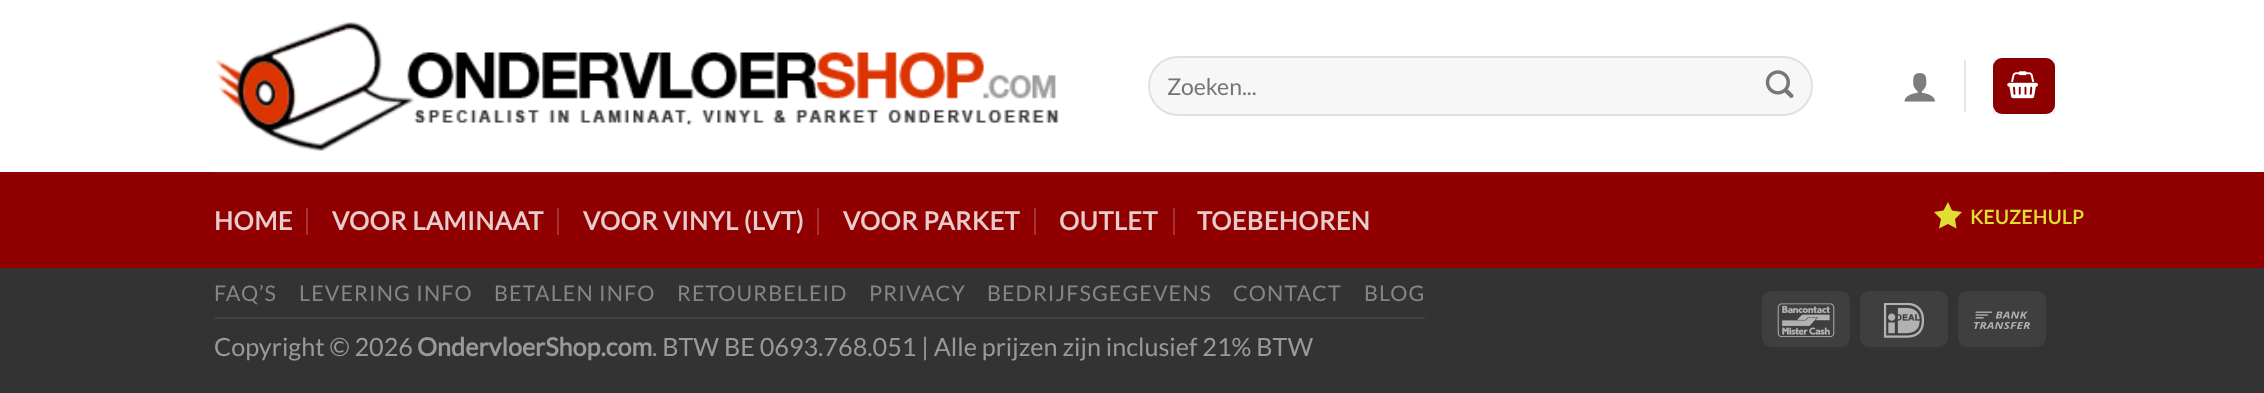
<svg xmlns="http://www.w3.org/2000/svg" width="2264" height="393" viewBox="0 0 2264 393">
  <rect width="100%" height="100%" fill="#333"/>
  <path d="M0 0h2264v172H0z" fill="#fff"/>
  <image x="215" y="22" width="844" height="129" href="img/1.png"/>
  <rect x="1148" y="56" width="665" height="60" rx="30" fill="#f7f7f7"/>
  <rect x="1149" y="57" width="663" height="58" rx="29" fill="none" stroke="#00000017" stroke-width="2"/>
  <image x="1765" y="70" width="29" height="28" href="img/2.png"/>
  <image x="1904" y="73" width="31" height="29" href="img/3.png"/>
  <path d="M1964 60h2v52H1964z" fill="#e6e6e6"/>
  <rect x="1993" y="58" width="62" height="56" rx="9" fill="#8f0000"/>
  <path d="M1994 59h60v54H1994z" fill="none" stroke="#0000000d" stroke-width="2"/>
  <image x="2007" y="71" width="31" height="28" href="img/4.png"/>
  <path d="M0 172h2264v96H0z" fill="#900000"/>
  <path d="M214 172h1837v2H214z" fill="#8d0c0c"/>
  <path d="M306 208h2v27H306z" fill="#a63333"/>
  <path d="M557 208h2v27H557z" fill="#a63333"/>
  <path d="M817 208h2v27H817z" fill="#a63333"/>
  <path d="M1034 208h2v27H1034z" fill="#a63333"/>
  <path d="M1173 208h2v27H1173z" fill="#a63333"/>
  <path d="M1962 212L1952 210.5L1948 202L1943.5 210.5L1934 212L1941 219L1939 228.5L1948 224L1956.5 228.5L1955 219Z" fill="#dede34"/>
  <path d="M214 317h1211v2H214z" fill="#404040"/>
  <rect x="1762" y="291" width="88" height="56" rx="9" fill="#3f3f3f"/>
  <image x="1777" y="303" width="58" height="35" href="img/5.png"/>
  <rect x="1860" y="291" width="88" height="56" rx="9" fill="#3f3f3f"/>
  <image x="1883" y="303" width="42" height="35" href="img/6.png"/>
  <rect x="1958" y="291" width="88" height="56" rx="9" fill="#3f3f3f"/>
  <image x="1974" y="311" width="56" height="18" href="img/7.png"/>
  <text x="1167" y="95" font-family="Lato" font-size="23" fill="#757575">Zoeken...</text>
  <g font-family="Lato" font-size="25.2" font-weight="bold" letter-spacing="0.5" fill="#e9cccc">
    <text x="214" y="230">HOME</text>
    <text x="332" y="230">VOOR LAMINAAT</text>
    <text x="583" y="230">VOOR VINYL (LVT)</text>
    <text x="843" y="230">VOOR PARKET</text>
    <text x="1059" y="230">OUTLET</text>
    <text x="1197" y="230">TOEBEHOREN</text>
  </g>
  <text x="1970" y="224" font-family="Lato" font-size="19" font-weight="bold" letter-spacing="0.4" fill="#dede34">KEUZEHULP</text>
  <g font-family="Lato" font-size="21.5" letter-spacing="1.1" fill="#858585">
    <text x="214" y="301">FAQ’S</text>
    <text x="299" y="301">LEVERING INFO</text>
    <text x="494" y="301">BETALEN INFO</text>
    <text x="677" y="301">RETOURBELEID</text>
    <text x="869" y="301">PRIVACY</text>
    <text x="987" y="301">BEDRIJFSGEGEVENS</text>
    <text x="1233" y="301">CONTACT</text>
    <text x="1364" y="301">BLOG</text>
  </g>
  <text x="214" y="356" font-family="Lato" font-size="25.2" fill="#999">Copyright © 2026</text>
  <text x="417" y="356" font-family="Lato" font-size="25.2" font-weight="bold" fill="#999">OndervloerShop.com</text>
  <text x="652" y="356" font-family="Lato" font-size="25.2" fill="#999">. BTW BE 0693.768.051 | Alle prijzen zijn inclusief 21% BTW</text>
</svg>
